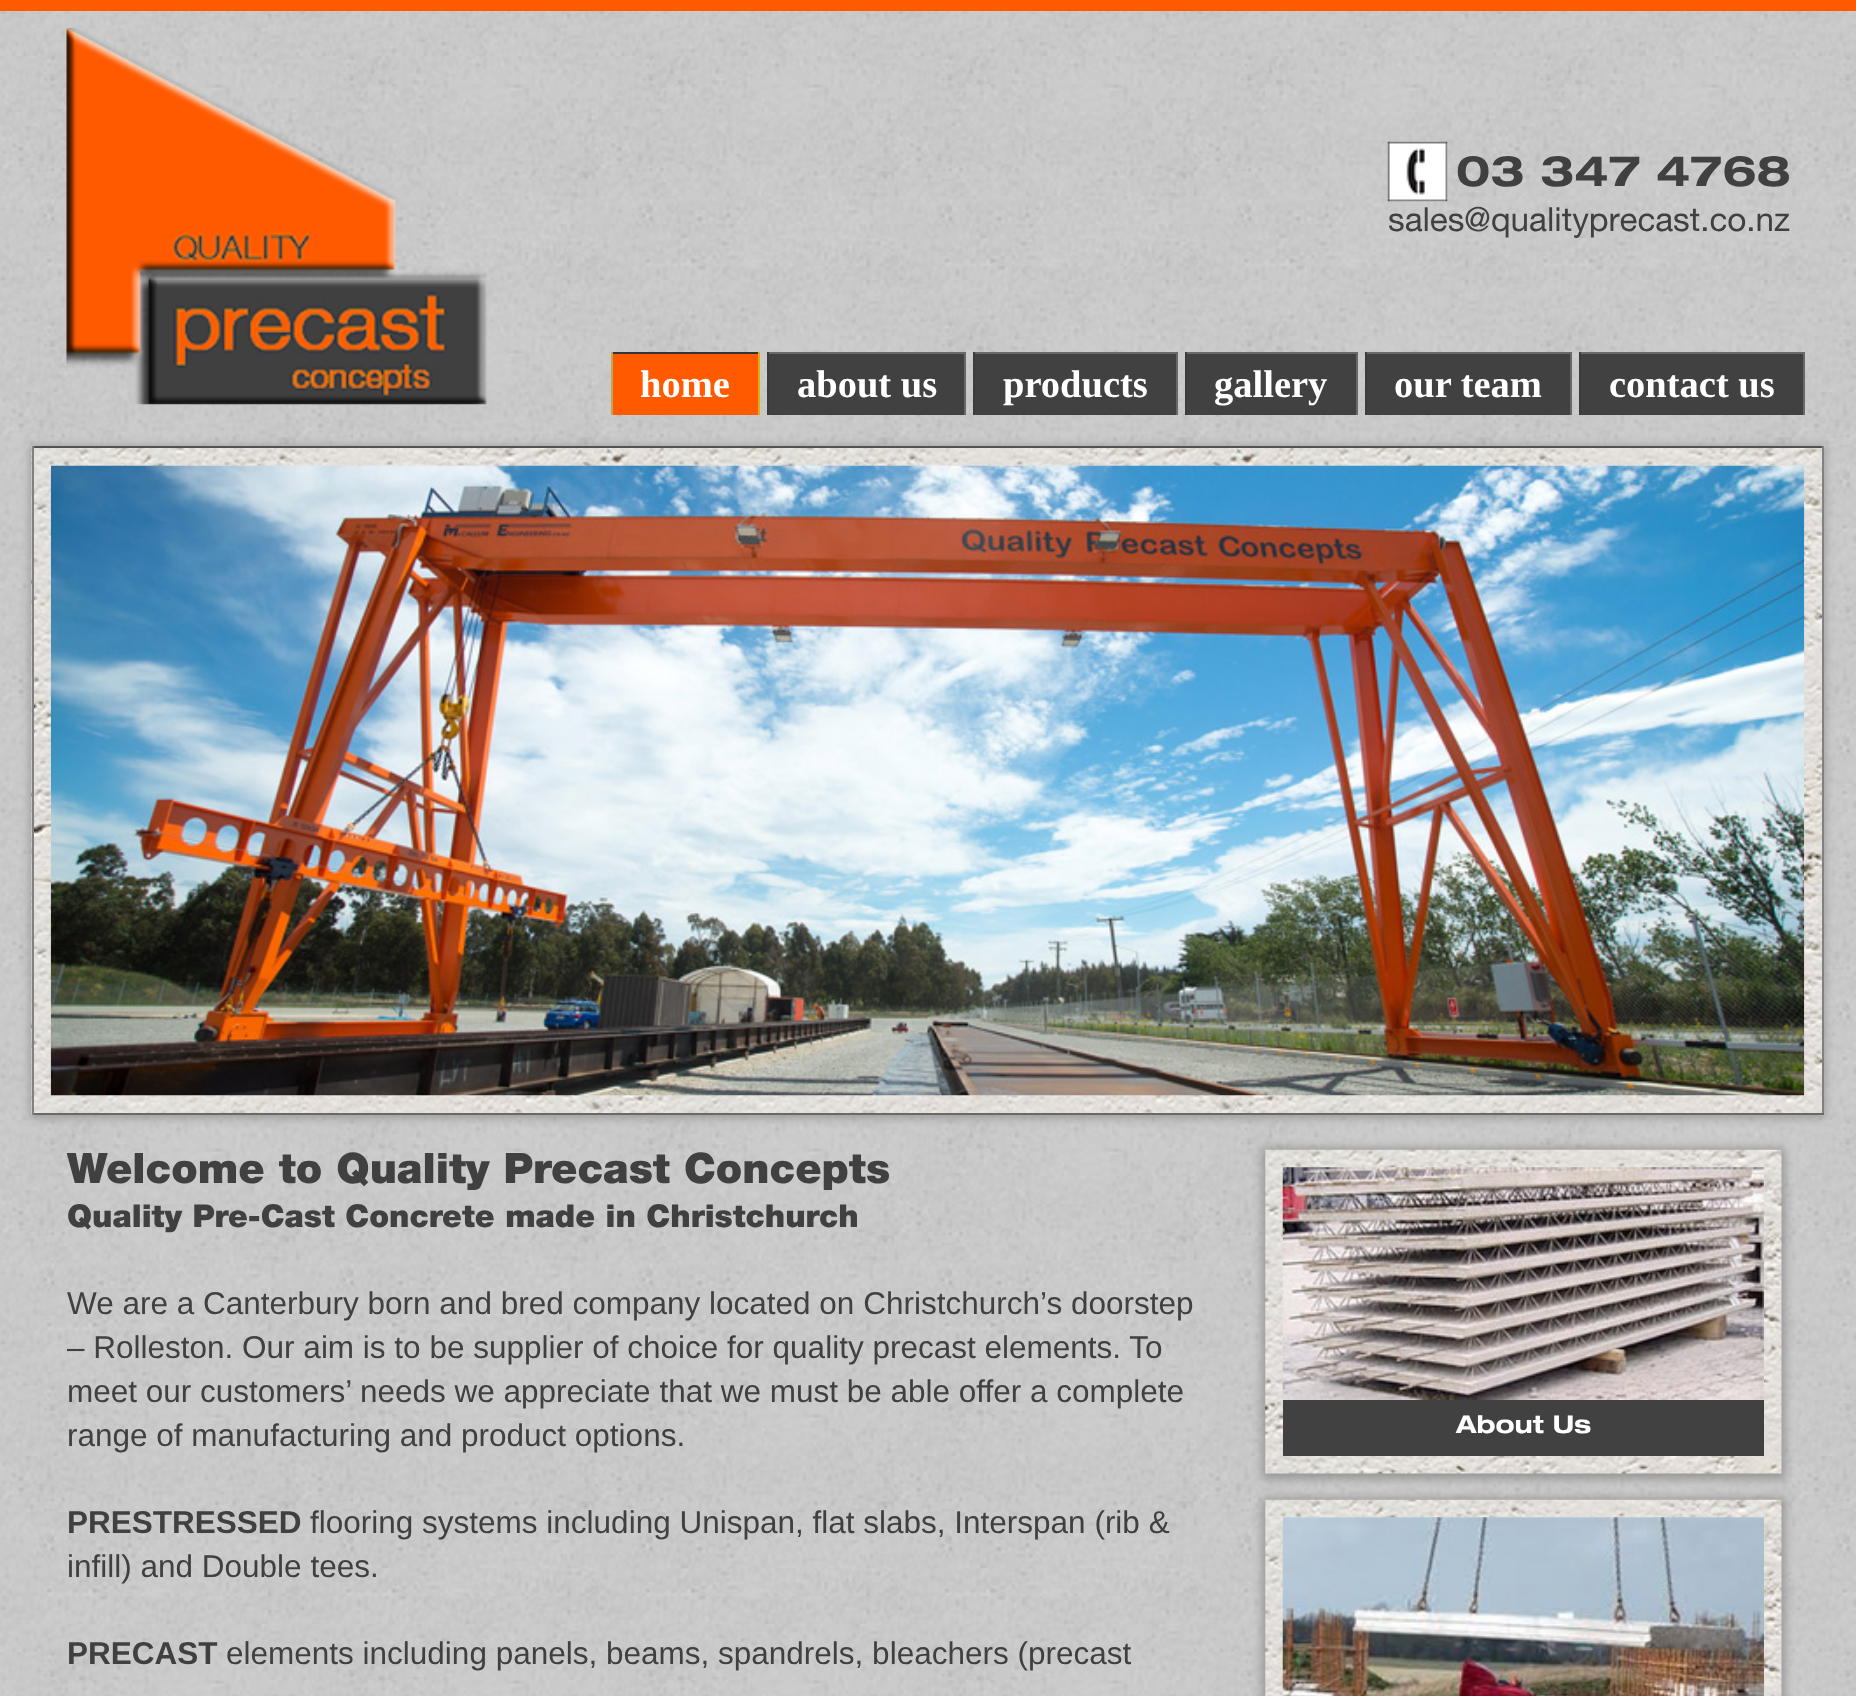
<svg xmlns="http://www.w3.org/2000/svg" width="1856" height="1696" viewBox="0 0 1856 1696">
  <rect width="100%" height="100%" fill="#fff"/>
  <image x="0" y="11" width="1856" height="1685" href="img/1.png"/>
  <path d="M0 0h1856v11H0z" fill="#ff5a00"/>
  <image x="66" y="28" width="421" height="377" href="img/2.png"/>
  <image x="1387" y="141" width="61" height="61" href="img/3.png"/>
  <path d="M613 354h145v61H613z" fill="#ff5a00"/>
  <path d="M611 352h149v2H611z" fill="#343434"/>
  <path d="M758 352h2v63H758z" fill="#e1ad0c"/>
  <path d="M611 352h2v63H611z" fill="#c0a656"/>
  <path d="M769 354h195v61H769z" fill="#414141"/>
  <path d="M767 352h199v2H767z" fill="#696969"/>
  <path d="M964 352h2v63H964z" fill="#686868"/>
  <path d="M767 352h2v63H767z" fill="#3c3c3c"/>
  <path d="M975 354h201v61H975z" fill="#414141"/>
  <path d="M973 352h205v2H973z" fill="#696969"/>
  <path d="M1176 352h2v63H1176z" fill="#686868"/>
  <path d="M973 352h2v63H973z" fill="#3c3c3c"/>
  <path d="M1187 354h169v61H1187z" fill="#414141"/>
  <path d="M1185 352h173v2H1185z" fill="#696969"/>
  <path d="M1356 352h2v63H1356z" fill="#686868"/>
  <path d="M1185 352h2v63H1185z" fill="#3c3c3c"/>
  <path d="M1367 354h203v61H1367z" fill="#414141"/>
  <path d="M1365 352h207v2H1365z" fill="#696969"/>
  <path d="M1570 352h2v63H1570z" fill="#686868"/>
  <path d="M1365 352h2v63H1365z" fill="#3c3c3c"/>
  <path d="M1581 354h222v61H1581z" fill="#414141"/>
  <path d="M1579 352h225v2H1579z" fill="#696969"/>
  <path d="M1803 352h2v63H1803z" fill="#686868"/>
  <path d="M1579 352h2v63H1579z" fill="#3c3c3c"/>
  <path d="M30 446h1795v672H30z" fill="#9a9a9a" filter="blur(5px)"/>
  <image x="31" y="446" width="1791" height="669" href="img/4.png"/>
  <path d="M32 446h1792v2H32z" fill="#525252"/>
  <path d="M1822 446h2v669H1822z" fill="#808080"/>
  <path d="M32 1113h1792v2H32z" fill="#6a6968"/>
  <path d="M32 446h2v669H32z" fill="#808080"/>
  <image x="50" y="465" width="1755" height="631" href="img/5.png"/>
  <path d="M1262 1148h523v331H1262z" fill="#969696" filter="blur(5px)"/>
  <image x="1265" y="1149" width="517" height="325" href="img/6.png"/>
  <image x="1282" y="1167" width="482" height="233" href="img/7.png"/>
  <path d="M1283 1400h481v56H1283z" fill="#414141"/>
  <path d="M1262 1498h523v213H1262z" fill="#969696" filter="blur(5px)"/>
  <image x="1265" y="1499" width="517" height="197" href="img/8.png"/>
  <image x="1282" y="1517" width="482" height="179" href="img/9.png"/>
  <text x="1456" y="186" font-family="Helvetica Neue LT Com" font-size="42" font-weight="bold" fill="#404040">03 347 4768</text>
  <text x="1388" y="231" font-family="Helvetica Neue" font-size="33.25" fill="#404040">sales@qualityprecast.co.nz</text>
  <g font-family="Liberation Serif" font-size="38.5" font-weight="bold" fill="#fff">
    <text x="640" y="397">home</text>
    <text x="797" y="397">about us</text>
    <text x="1003" y="397">products</text>
    <text x="1214" y="397">gallery</text>
    <text x="1394" y="397">our team</text>
    <text x="1609" y="397">contact us</text>
  </g>
  <text x="67" y="1183" font-family="Helvetica Neue LT Com" font-size="42" font-weight="900" fill="#404040">Welcome to Quality Precast Concepts</text>
  <text x="67" y="1227" font-family="Helvetica Neue LT Com" font-size="31.5" font-weight="900" fill="#404040">Quality Pre-Cast Concrete made in Christchurch</text>
  <g font-family="Liberation Sans" font-size="31.5" fill="#404040">
    <text x="67" y="1314">We are a Canterbury born and bred company located on Christchurch’s doorstep</text>
    <text x="67" y="1358">– Rolleston. Our aim is to be supplier of choice for quality precast elements. To</text>
    <text x="67" y="1402">meet our customers’ needs we appreciate that we must be able offer a complete</text>
    <text x="67" y="1446">range of manufacturing and product options.</text>
  </g>
  <text x="67" y="1533" font-family="Liberation Sans" font-size="31.5" font-weight="bold" fill="#404040">PRESTRESSED</text>
  <g font-family="Liberation Sans" font-size="31.5" fill="#404040">
    <text x="310" y="1533">flooring systems including Unispan, flat slabs, Interspan (rib &amp;</text>
    <text x="67" y="1577">infill) and Double tees.</text>
  </g>
  <text x="67" y="1664" font-family="Liberation Sans" font-size="31.5" font-weight="bold" fill="#404040">PRECAST</text>
  <text x="226" y="1664" font-family="Liberation Sans" font-size="31.5" fill="#404040">elements including panels, beams, spandrels, bleachers (precast</text>
  <text x="1456" y="1433" font-family="Helvetica Neue LT Com" font-size="24.5" font-weight="bold" fill="#fff">About Us</text>
</svg>
